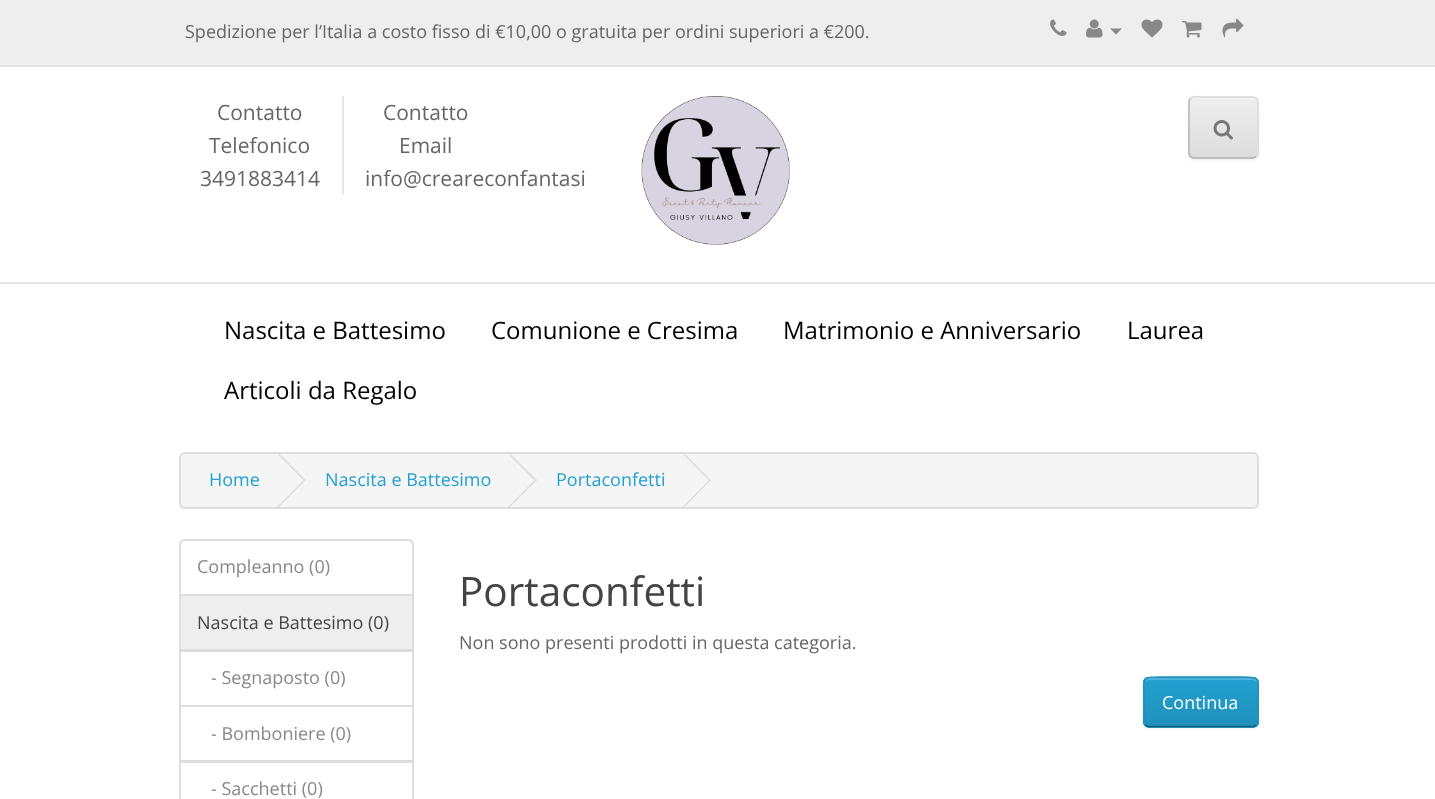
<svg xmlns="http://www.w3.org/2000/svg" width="1435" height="799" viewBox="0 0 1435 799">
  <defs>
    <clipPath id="clip1"><rect x="1188" y="96" width="71" height="63" rx="6"/></clipPath>
    <linearGradient id="g1" gradientUnits="userSpaceOnUse" x1="1223" y1="98" x2="1223" y2="158"><stop offset="0" stop-color="#eee"/><stop offset="1" stop-color="#ddd"/></linearGradient>
    <clipPath id="clip2"><rect x="1143" y="677" width="116" height="51" rx="6"/></clipPath>
    <linearGradient id="g2" gradientUnits="userSpaceOnUse" x1="1201" y1="678" x2="1201" y2="726"><stop offset="0" stop-color="#23a1d1"/><stop offset="1" stop-color="#1f90bb"/></linearGradient>
  </defs>
  <rect width="100%" height="100%" fill="#fff"/>
  <path d="M0 0h1435v65H0z" fill="#eee"/>
  <path d="M0 65h1435v2H0z" fill="#e2e2e2"/>
  <image x="1050" y="19" width="17" height="17" href="img/1.png"/>
  <image x="1086" y="19" width="17" height="19" href="img/2.png"/>
  <path d="M1110 28.5H1122L1116 34.5Z" fill="#888"/>
  <image x="1141" y="19" width="22" height="19" href="img/3.png"/>
  <image x="1182" y="21" width="20" height="17" href="img/4.png"/>
  <image x="1222" y="18" width="22" height="20" href="img/5.png"/>
  <path d="M0 282h1435v2H0z" fill="#e6e6e6"/>
  <path d="M342 96h2v99H342z" fill="#e6e6e6"/>
  <image x="587" y="96" width="203" height="149" href="img/6.png"/>
  <rect x="1188" y="98" width="71" height="63" rx="6" fill="#0000000d" filter="blur(1.5px)"/>
  <rect x="1188" y="96" width="71" height="63" rx="6" fill="#e7e7e7"/>
  <g clip-path="url(#clip1)">
    <path d="M1188 98h71v60H1188z" fill="url(#g1)"/>
  </g>
  <path d="M1194 99H1252C1255 99 1257 101 1257 104C1257 96 1248 98 1242 98H1204C1199 98 1190 96 1190 104C1190 101 1192 99 1194 99Z" fill="#f1f1f1"/>
  <path d="M1190.5 98.5C1193.5 95 1201.5 97 1204 97H1243C1258 97 1258 95.5 1258 110.5V144.5C1258 147 1259 154 1256 156.5" fill="none" stroke="#ddd" stroke-width="1.5"/>
  <path d="M1256 156.5C1255 157.5 1254 158 1252.5 158H1194C1192.5 158 1191.5 157.5 1190.5 156.5" fill="none" stroke="#b3b3b3" stroke-width="1.5"/>
  <path d="M1190.5 156.5C1189.5 155.5 1189 154.5 1189 153V102C1189 100.5 1189.5 99.5 1190.5 98.5" fill="none" stroke="#b7b7b7" stroke-width="1.5"/>
  <image x="1213" y="120" width="20" height="20" href="img/7.png"/>
  <rect x="180" y="453" width="1078" height="55" rx="5" fill="#f5f5f5" stroke="#ddd" stroke-width="2"/>
  <path d="M277 453.5L278 452.5L305.5 480L304.5 481.5Z" fill="#ddd"/>
  <path d="M277 507L304.5 479L305.5 480L278 508Z" fill="#ddd"/>
  <path d="M508 453.5L509 452.5L537 480L535.5 481.5Z" fill="#ddd"/>
  <path d="M508 507L535.5 479L537 480L509 508Z" fill="#ddd"/>
  <path d="M682.5 453.5L683.5 452.5L711 480L710 481.5Z" fill="#ddd"/>
  <path d="M682.5 507L710 479L711 480L683.5 508Z" fill="#ddd"/>
  <path d="M185 540H408C411 540 413 542 413 545V595H180V545C180 542 182 540 185 540Z" fill="none" stroke="#ddd" stroke-width="2"/>
  <path d="M180 651h233v55H180z" fill="none" stroke="#ddd" stroke-width="2"/>
  <path d="M180 595h233v55H180z" fill="#eee" stroke="#ddd" stroke-width="2"/>
  <path d="M180 706h233v55H180z" fill="none" stroke="#ddd" stroke-width="2"/>
  <path d="M180 762h233v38H180z" fill="none" stroke="#ddd" stroke-width="2"/>
  <rect x="1143" y="678" width="116" height="51" rx="6" fill="#0000000d" filter="blur(1.5px)"/>
  <rect x="1143" y="677" width="116" height="51" rx="6" fill="#229ac8"/>
  <g clip-path="url(#clip2)">
    <path d="M1143 678h116v48H1143z" fill="url(#g2)"/>
  </g>
  <path d="M1149 680H1252C1255 680 1257 682 1257 684V683C1257 680 1255 678 1252 678H1150C1148 678 1146 680 1145 682C1146 681 1148 680 1149 680Z" fill="#4fb3da"/>
  <path d="M1256 725L1253 726.5H1148.5L1145.5 725" fill="none" stroke="#145e7a" stroke-width="1.5"/>
  <path d="M1145.5 725C1143 722.5 1144 718 1144 715V702C1144 674.5 1139 677 1166 677H1235C1262.5 677 1258 674.5 1258 702V715C1258 718 1258.5 722.5 1256 725" fill="none" stroke="#1f90bb" stroke-width="1.5"/>
  <text x="185" y="38" font-family="Open Sans" font-size="18" fill="#666">Spedizione per l’Italia a costo fisso di €10,00 o gratuita per ordini superiori a €200.</text>
  <g font-family="Open Sans" font-size="21" fill="#666">
    <text x="217" y="120">Contatto</text>
    <text x="209" y="153">Telefonico</text>
    <text x="200" y="186">3491883414</text>
    <text x="383" y="120">Contatto</text>
    <text x="399" y="153">Email</text>
    <text x="365" y="186">info@creareconfantasi</text>
  </g>
  <g font-family="Open Sans" font-size="24" fill="#000">
    <text x="224" y="339">Nascita e Battesimo</text>
    <text x="491" y="339">Comunione e Cresima</text>
    <text x="783" y="339">Matrimonio e Anniversario</text>
    <text x="1127" y="339">Laurea</text>
    <text x="224" y="399">Articoli da Regalo</text>
  </g>
  <g font-family="Open Sans" font-size="18" fill="#23a1d1">
    <text x="209" y="486">Home</text>
    <text x="325" y="486">Nascita e Battesimo</text>
    <text x="556" y="486">Portaconfetti</text>
  </g>
  <text x="197" y="573" font-family="Open Sans" font-size="18" fill="#888">Compleanno (0)</text>
  <text x="197" y="629" font-family="Open Sans" font-size="18" fill="#444">Nascita e Battesimo (0)</text>
  <g font-family="Open Sans" font-size="18" fill="#888">
    <text x="211" y="684">- Segnaposto (0)</text>
    <text x="211" y="740">- Bomboniere (0)</text>
    <text x="211" y="795">- Sacchetti (0)</text>
  </g>
  <text x="459" y="606" font-family="Open Sans" font-size="40.5" fill="#444">Portaconfetti</text>
  <text x="459" y="649" font-family="Open Sans" font-size="18" fill="#666">Non sono presenti prodotti in questa categoria.</text>
  <text x="1162" y="709" font-family="Open Sans" font-size="18" fill="#fff">Continua</text>
</svg>
